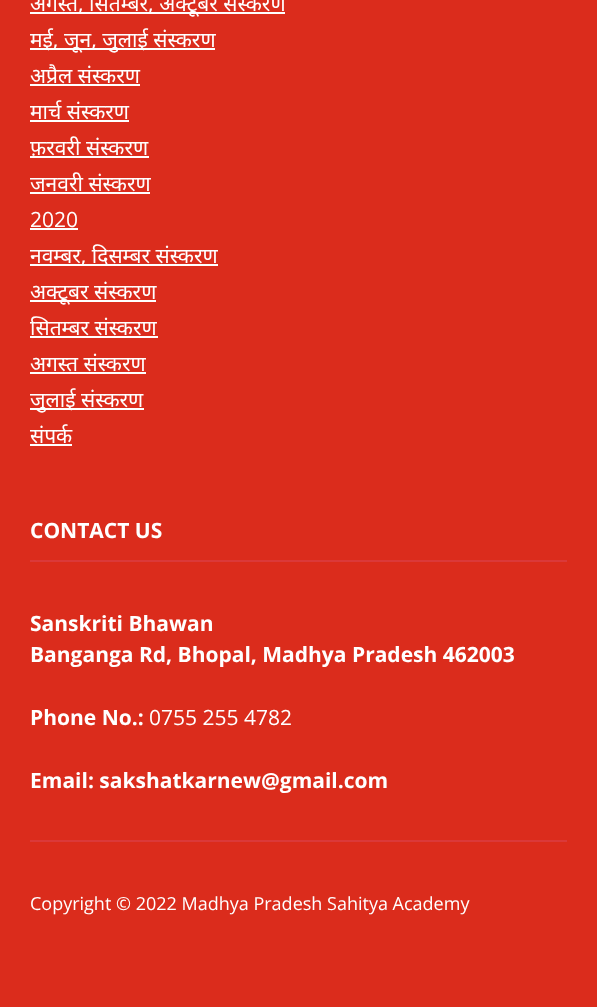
<svg xmlns="http://www.w3.org/2000/svg" width="597" height="1007" viewBox="0 0 597 1007">
  <rect width="100%" height="100%" fill="#db2c1c"/>
  <path d="M30 840h537v2H30z" fill="#db3939"/>
  <path d="M30 12h255v2H30z" fill="#fff"/>
  <path d="M30 48h185v2H30z" fill="#fff"/>
  <path d="M30 84h110v2H30z" fill="#fff"/>
  <path d="M30 120h99v2H30z" fill="#fff"/>
  <path d="M30 156h119v2H30z" fill="#fff"/>
  <path d="M30 192h120v2H30z" fill="#fff"/>
  <path d="M30 228h48v2H30z" fill="#fff"/>
  <path d="M30 264h188v2H30z" fill="#fff"/>
  <path d="M30 300h126v2H30z" fill="#fff"/>
  <path d="M30 336h128v2H30z" fill="#fff"/>
  <path d="M30 372h116v2H30z" fill="#fff"/>
  <path d="M30 408h114v2H30z" fill="#fff"/>
  <path d="M30 444h42v2H30z" fill="#fff"/>
  <path d="M30 560h537v2H30z" fill="#db3939"/>
  <g font-family="Noto Sans" font-size="21" fill="#fff">
    <text x="30" y="11">अगस्त, सितम्बर, अक्टूबर संस्करण</text>
    <text x="30" y="47">मई, जून, जुलाई संस्करण</text>
    <text x="30" y="83">अप्रैल संस्करण</text>
    <text x="30" y="119">मार्च संस्करण</text>
    <text x="30" y="155">फ़रवरी संस्करण</text>
    <text x="30" y="191">जनवरी संस्करण</text>
  </g>
  <text x="30" y="227" font-family="Open Sans" font-size="21" fill="#fff">2020</text>
  <g font-family="Noto Sans" font-size="21" fill="#fff">
    <text x="30" y="263">नवम्बर, दिसम्बर संस्करण</text>
    <text x="30" y="299">अक्टूबर संस्करण</text>
    <text x="30" y="335">सितम्बर संस्करण</text>
    <text x="30" y="371">अगस्त संस्करण</text>
    <text x="30" y="407">जुलाई संस्करण</text>
    <text x="30" y="443">संपर्क</text>
  </g>
  <g font-family="Open Sans" font-size="21" font-weight="bold" fill="#fff">
    <text x="30" y="538">CONTACT US</text>
    <text x="30" y="631">Sanskriti Bhawan</text>
    <text x="30" y="662">Banganga Rd, Bhopal, Madhya Pradesh 462003</text>
    <text x="30" y="725">Phone No.:</text>
  </g>
  <text x="149" y="725" font-family="Open Sans" font-size="21" fill="#fff">0755 255 4782</text>
  <text x="30" y="788" font-family="Open Sans" font-size="21" font-weight="bold" fill="#fff">Email: sakshatkarnew@gmail.com</text>
  <text x="30" y="910" font-family="Open Sans" font-size="18" fill="#fff">Copyright © 2022 Madhya Pradesh Sahitya Academy</text>
</svg>
